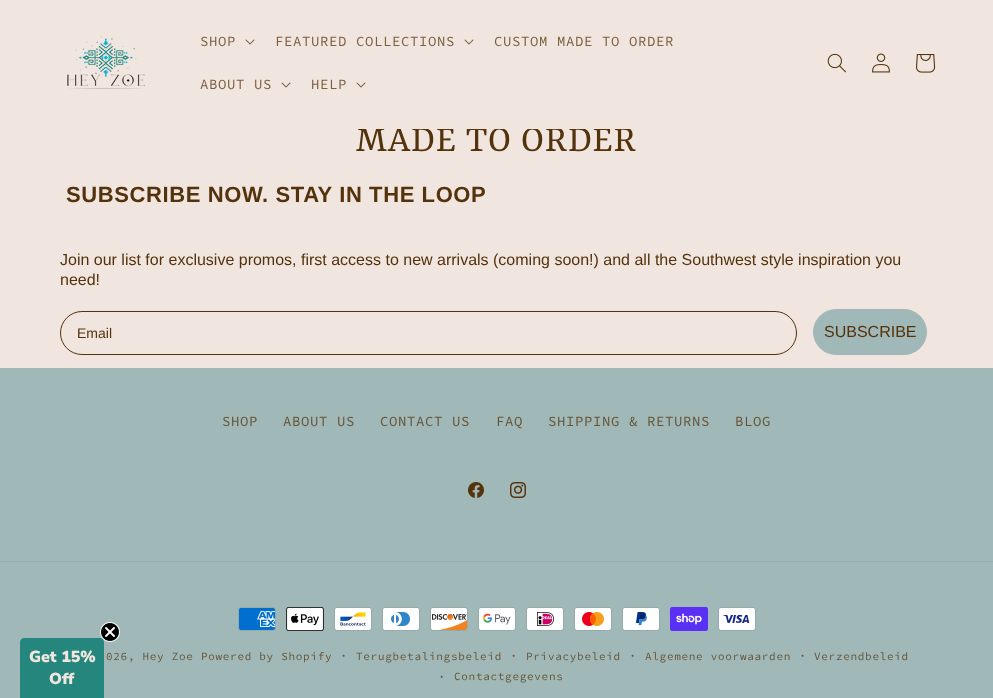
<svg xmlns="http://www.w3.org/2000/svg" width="993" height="698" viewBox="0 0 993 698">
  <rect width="100%" height="100%" fill="#f0e6df"/>
  <image x="67" y="36" width="78" height="53" href="img/1.png"/>
  <image x="245" y="39" width="10" height="6" href="img/2.png"/>
  <image x="464" y="39" width="10" height="6" href="img/2.png"/>
  <image x="281" y="82" width="10" height="6" href="img/2.png"/>
  <image x="356" y="82" width="10" height="6" href="img/2.png"/>
  <image x="827" y="53" width="19" height="20" href="img/3.png"/>
  <image x="872" y="53" width="18" height="20" href="img/4.png"/>
  <image x="916" y="54" width="20" height="19" href="img/5.png"/>
  <rect x="60.5" y="311.5" width="736" height="43" rx="21.5" fill="none" stroke="#54320b"/>
  <rect x="813.5" y="309.5" width="113" height="45" rx="22.5" fill="#a0b9b8" stroke="#a0b9b8"/>
  <path d="M0 368h993v330H0z" fill="#a0b9b8"/>
  <path d="M24 638H100C102 638 104 640 104 642V698H20V642C20 640 22 638 24 638Z" fill="#25867d"/>
  <image x="100" y="622" width="20" height="20" href="img/6.png"/>
  <image x="468" y="482" width="16" height="16" href="img/7.png"/>
  <image x="510" y="482" width="16" height="16" href="img/8.png"/>
  <path d="M0 561h993v1H0z" fill="#9aaeaa"/>
  <image x="238" y="607" width="38" height="24" href="img/9.png"/>
  <image x="286" y="607" width="38" height="24" href="img/10.png"/>
  <image x="334" y="607" width="38" height="24" href="img/11.png"/>
  <image x="382" y="607" width="38" height="24" href="img/12.png"/>
  <image x="430" y="607" width="38" height="24" href="img/13.png"/>
  <image x="478" y="607" width="38" height="24" href="img/14.png"/>
  <image x="526" y="607" width="38" height="24" href="img/15.png"/>
  <image x="574" y="607" width="38" height="24" href="img/16.png"/>
  <image x="622" y="607" width="38" height="24" href="img/17.png"/>
  <image x="670" y="607" width="38" height="24" href="img/18.png"/>
  <image x="718" y="607" width="38" height="24" href="img/19.png"/>
  <g font-family="Source Code Pro" font-size="14" letter-spacing="0.6" fill="#7b5f40">
    <text x="200" y="46">SHOP</text>
    <text x="275" y="46">FEATURED COLLECTIONS</text>
    <text x="494" y="46">CUSTOM MADE TO ORDER</text>
    <text x="200" y="89">ABOUT US</text>
    <text x="311" y="89">HELP</text>
  </g>
  <text x="356" y="151" font-family="Rasa" font-size="40" letter-spacing="0.6" fill="#54320b">MADE TO ORDER</text>
  <path d="M358 127h273v2H358z" fill="#f0e6df"/>
  <text x="66" y="202" font-family="Liberation Sans" font-size="22" font-weight="bold" letter-spacing="0.6" fill="#54320b">SUBSCRIBE NOW. STAY IN THE LOOP</text>
  <g font-family="Liberation Sans" font-size="16" fill="#54320b">
    <text x="60" y="265">Join our list for exclusive promos, first access to new arrivals (coming soon!) and all the Southwest style inspiration you</text>
    <text x="60" y="285">need!</text>
  </g>
  <text x="77" y="338" font-family="Liberation Sans" font-size="14" fill="#54320b">Email</text>
  <text x="824" y="337" font-family="Liberation Sans" font-size="16" fill="#54320b">SUBSCRIBE</text>
  <g font-family="Nunito Sans" font-size="16" font-weight="900" fill="#f0e6df">
    <text x="29" y="662">Get 15%</text>
    <text x="49" y="684">Off</text>
  </g>
  <g font-family="Source Code Pro" font-size="14" letter-spacing="0.6" fill="#675436">
    <text x="222" y="426">SHOP</text>
    <text x="283" y="426">ABOUT US</text>
    <text x="380" y="426">CONTACT US</text>
    <text x="496" y="426">FAQ</text>
    <text x="548" y="426">SHIPPING &amp; RETURNS</text>
    <text x="735" y="426">BLOG</text>
  </g>
  <text x="106" y="660" font-family="Source Code Pro" font-size="11" letter-spacing="0.7" fill="#675436">026, Hey Zoe Powered by Shopify</text>
  <text x="340" y="660" font-family="Source Code Pro" font-size="12" letter-spacing="0.7" fill="#675436">·</text>
  <text x="356" y="660" font-family="Source Code Pro" font-size="11" letter-spacing="0.7" fill="#675436">Terugbetalingsbeleid</text>
  <text x="510" y="660" font-family="Source Code Pro" font-size="12" letter-spacing="0.7" fill="#675436">·</text>
  <text x="526" y="660" font-family="Source Code Pro" font-size="11" letter-spacing="0.7" fill="#675436">Privacybeleid</text>
  <text x="629" y="660" font-family="Source Code Pro" font-size="12" letter-spacing="0.7" fill="#675436">·</text>
  <text x="645" y="660" font-family="Source Code Pro" font-size="11" letter-spacing="0.7" fill="#675436">Algemene voorwaarden</text>
  <text x="799" y="660" font-family="Source Code Pro" font-size="12" letter-spacing="0.7" fill="#675436">·</text>
  <text x="814" y="660" font-family="Source Code Pro" font-size="11" letter-spacing="0.7" fill="#675436">Verzendbeleid</text>
  <text x="438" y="681" font-family="Source Code Pro" font-size="12" letter-spacing="0.7" fill="#675436">·</text>
  <text x="454" y="680" font-family="Source Code Pro" font-size="11" letter-spacing="0.7" fill="#675436">Contactgegevens</text>
</svg>
